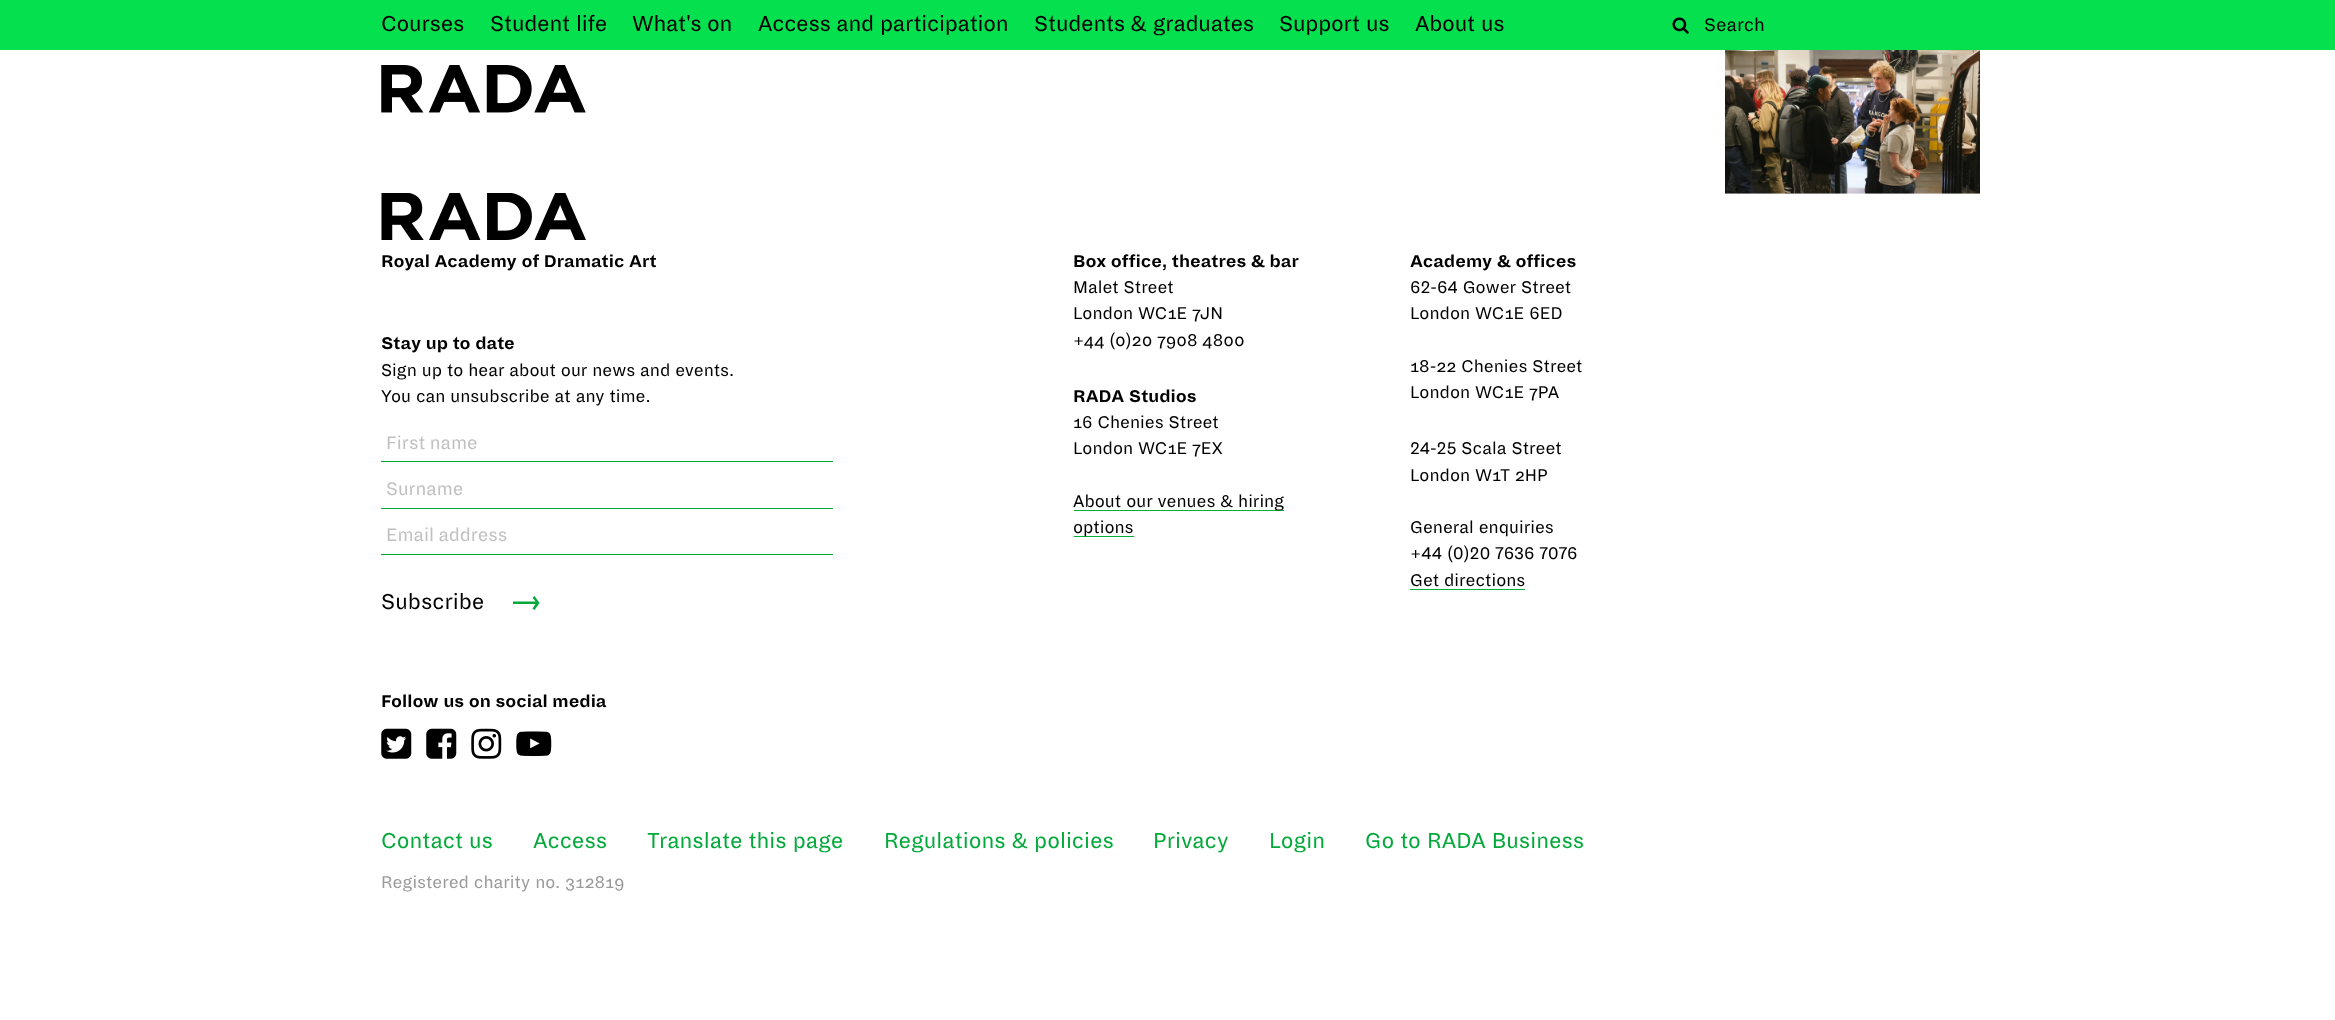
<svg xmlns="http://www.w3.org/2000/svg" width="2335" height="1020" viewBox="0 0 2335 1020">
  <rect width="100%" height="100%" fill="#fff"/>
  <path d="M0 0h2335v50H0z" fill="#05e04f"/>
  <image x="1672" y="17" width="17" height="17" href="img/1.png"/>
  <image x="381" y="65" width="205" height="48" href="img/2.png"/>
  <image x="1725" y="50" width="255" height="144" href="img/3.png"/>
  <image x="381" y="193" width="205" height="47" href="img/4.png"/>
  <path d="M381 461h452v1H381z" fill="#04a93b"/>
  <path d="M381 508h452v1H381z" fill="#04a93b"/>
  <path d="M381 554h452v1H381z" fill="#04a93b"/>
  <path d="M534.5 596L532.5 597.5L535.5 601.5H513V604H535.5L532.5 608.5L534.5 610L539.5 603Z" fill="#04a93b" fill-rule="evenodd"/>
  <image x="381" y="728" width="31" height="31" href="img/5.png"/>
  <image x="426" y="728" width="31" height="31" href="img/6.png"/>
  <image x="471" y="728" width="31" height="31" href="img/7.png"/>
  <image x="516" y="731" width="36" height="26" href="img/8.png"/>
  <path d="M1074 510h210v1H1074z" fill="#00b03b"/>
  <path d="M1074 536h60v1H1074z" fill="#00b03b"/>
  <path d="M1410 589h115v1H1410z" fill="#00b03b"/>
  <g font-family="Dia" font-size="23.75" letter-spacing="-0.25" fill="#000">
    <text x="381" y="31">Courses</text>
    <text x="490" y="31">Student</text>
    <text x="576" y="31">life</text>
    <text x="632" y="31">What's</text>
    <text x="707" y="31">on</text>
    <text x="758" y="31" word-spacing="0.75">Access and</text>
    <text x="880" y="31">participation</text>
    <text x="1034" y="31" word-spacing="0.75">Students &amp;</text>
    <text x="1153" y="31">graduates</text>
    <text x="1279" y="31">Support</text>
    <text x="1366" y="31">us</text>
    <text x="1415" y="31">About</text>
    <text x="1481" y="31">us</text>
  </g>
  <text x="1704" y="31" font-family="Dia" font-size="20" fill="#000">Search</text>
  <g font-family="Dia" font-size="18.75" font-weight="bold" fill="#000">
    <text x="381" y="267" word-spacing="0.75">Royal Academy of Dramatic Art</text>
    <text x="381" y="349" word-spacing="0.75">Stay up to date</text>
  </g>
  <g font-family="Dia" font-size="18.75" fill="#000">
    <text x="381" y="376" word-spacing="0.75">Sign up to hear about our news and events.</text>
    <text x="381" y="402" word-spacing="0.75">You can unsubscribe at any time.</text>
  </g>
  <g font-family="Dia" font-size="20" fill="#c0c0c0">
    <text x="386" y="449">First name</text>
    <text x="386" y="495">Surname</text>
    <text x="386" y="541">Email address</text>
  </g>
  <text x="381" y="609" font-family="Dia" font-size="23.75" fill="#000">Subscribe</text>
  <g font-family="Dia" font-size="18.75" font-weight="bold" fill="#000">
    <text x="381" y="707" word-spacing="0.75">Follow us on social media</text>
    <text x="1073" y="267" word-spacing="0.75">Box office, theatres &amp; bar</text>
  </g>
  <text x="1073" y="293" word-spacing="0.75" font-family="Dia" font-size="18.75" fill="#000">Malet Street</text>
  <g font-family="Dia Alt" font-size="18.75" fill="#000">
    <text x="1073" y="319" word-spacing="0.75">London WC1E 7JN</text>
    <text x="1073" y="346" word-spacing="0.75">+44 (0)20 7908 4800</text>
  </g>
  <text x="1073" y="402" word-spacing="0.75" font-family="Dia" font-size="18.75" font-weight="bold" fill="#000">RADA Studios</text>
  <g font-family="Dia Alt" font-size="18.75" fill="#000">
    <text x="1073" y="428" word-spacing="0.75">16 Chenies Street</text>
    <text x="1073" y="454" word-spacing="0.75">London WC1E 7EX</text>
  </g>
  <g font-family="Dia" font-size="18.75" fill="#000">
    <text x="1073" y="507" word-spacing="0.75">About our venues &amp; hiring</text>
    <text x="1073" y="533">options</text>
  </g>
  <text x="1410" y="267" word-spacing="0.75" font-family="Dia" font-size="18.75" font-weight="bold" fill="#000">Academy &amp; offices</text>
  <text x="1410" y="293" word-spacing="0.75" font-family="Dia" font-size="18.75" fill="#000">62-64 Gower Street</text>
  <g font-family="Dia Alt" font-size="18.75" fill="#000">
    <text x="1410" y="319" word-spacing="0.75">London WC1E 6ED</text>
    <text x="1410" y="372" word-spacing="0.75">18-22 Chenies Street</text>
    <text x="1410" y="398" word-spacing="0.75">London WC1E 7PA</text>
  </g>
  <text x="1410" y="454" word-spacing="0.75" font-family="Dia" font-size="18.75" fill="#000">24-25 Scala Street</text>
  <text x="1410" y="481" word-spacing="0.75" font-family="Dia Alt" font-size="18.75" fill="#000">London W1T 2HP</text>
  <g font-family="Dia" font-size="18.75" fill="#000">
    <text x="1410" y="533" word-spacing="0.75">General enquiries</text>
    <text x="1410" y="559" word-spacing="0.75">+44 (0)20 7636 7076</text>
    <text x="1410" y="586" word-spacing="0.75">Get directions</text>
  </g>
  <g font-family="Dia" font-size="23.75" fill="#04a93b">
    <text x="381" y="848" word-spacing="0.75">Contact us</text>
    <text x="533" y="848">Access</text>
    <text x="647" y="848" word-spacing="0.75">Translate this page</text>
    <text x="884" y="848" word-spacing="0.75">Regulations &amp; policies</text>
    <text x="1153" y="848">Privacy</text>
    <text x="1269" y="848">Login</text>
    <text x="1365" y="848" word-spacing="0.75">Go to RADA Business</text>
  </g>
  <text x="381" y="888" word-spacing="0.75" font-family="Dia Alt" font-size="18.75" fill="#9a9a9a">Registered charity no. 312819</text>
</svg>
